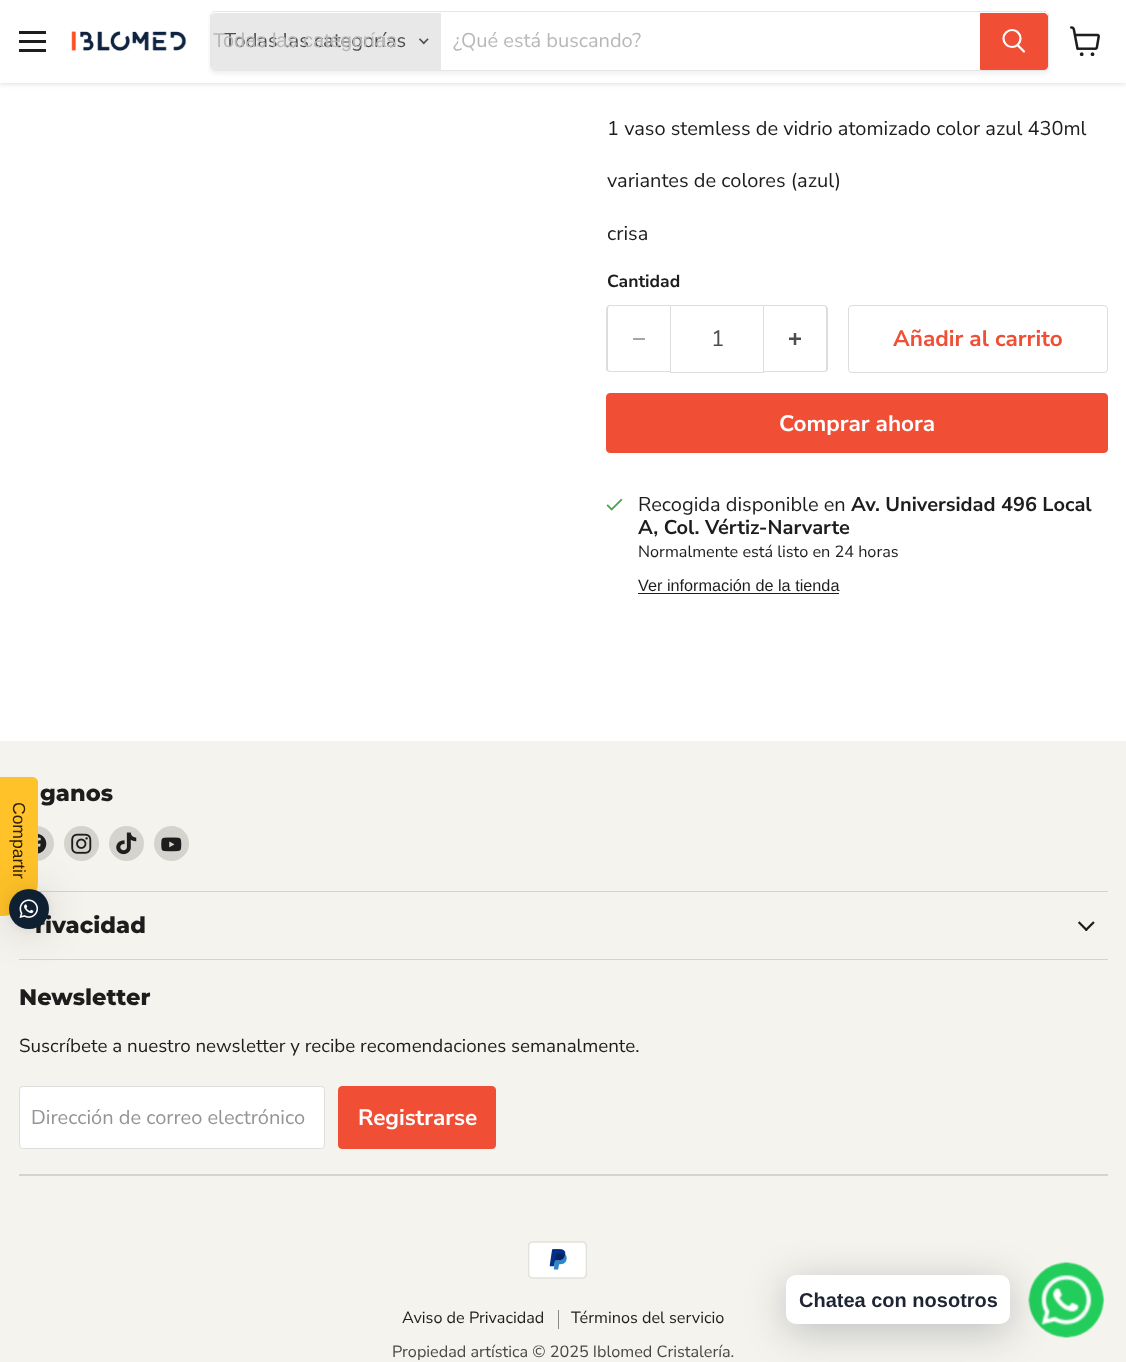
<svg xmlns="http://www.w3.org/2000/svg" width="1126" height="1362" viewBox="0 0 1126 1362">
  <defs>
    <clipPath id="clip1"><path d="M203 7H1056V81H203ZM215 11H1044C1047 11 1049 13 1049 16V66C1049 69 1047 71 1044 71H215C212 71 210 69 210 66V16C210 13 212 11 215 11Z" clip-rule="evenodd"/></clipPath>
  </defs>
  <rect width="100%" height="100%" fill="#fff"/>
  <path d="M0 1h1126v83H0z" fill="#80808040" filter="blur(2.5px)"/>
  <path d="M0 0h1126v83H0z" fill="#fff"/>
  <path d="M19 31h27v3H19z" fill="#1d1d1d"/>
  <path d="M19 40h27v3H19z" fill="#1d1d1d"/>
  <path d="M19 49h27v3H19z" fill="#1d1d1d"/>
  <image x="71" y="31" width="116" height="20" href="img/1.png"/>
  <g clip-path="url(#clip1)">
    <rect x="210" y="14" width="839" height="60" rx="5" fill="#8080801c" filter="blur(2px)"/>
  </g>
  <rect x="210.5" y="11.5" width="838" height="59" rx="4.5" fill="none" stroke="#80808033"/>
  <path d="M215 13H441V70H215C213 70 211 68 211 66V17C211 15 213 13 215 13Z" fill="#e8e8e8"/>
  <image x="419" y="38" width="10" height="7" href="img/2.png"/>
  <path d="M980.5 13.5H1044C1046 13.5 1047.5 15 1047.5 17V66C1047.5 68 1046 69.5 1044 69.5H980.5Z" fill="#f04f36" stroke="#f04f36"/>
  <path d="M1024 51.5L1018 45.5" fill="none" stroke="#fff" stroke-width="2.2" stroke-linecap="round"/>
  <circle cx="1012" cy="38.5" r="8.5" fill="none" stroke="#fff" stroke-width="2.2"/>
  <image x="1070" y="26" width="30" height="30" href="img/3.png"/>
  <path d="M610 305H670V372H610C608 372 606 371 606 369V309C606 307 608 305 610 305ZM610 306H670V371H610C609 371 608 370 608 369V309C608 307 609 306 610 306Z" fill="#ddd" fill-rule="evenodd"/>
  <path d="M633 338h12v2H633z" fill="#a6a6a6"/>
  <path d="M670.5 305.5h93v67H670.5z" fill="none" stroke="#ddd"/>
  <path d="M764 305H824C826 305 828 307 828 309V369C828 371 826 372 824 372H764ZM764 306H824C825 306 826 307 826 309V369C826 370 825 371 824 371H764Z" fill="#ddd" fill-rule="evenodd"/>
  <image x="789" y="333" width="12" height="12" href="img/4.png"/>
  <rect x="848.5" y="305.5" width="259" height="67" rx="3.5" fill="none" stroke="#ddd"/>
  <rect x="606.5" y="393.5" width="501" height="59" rx="3.5" fill="#f04f36" stroke="#f04f36"/>
  <image x="606" y="498" width="17" height="13" href="img/5.png"/>
  <path d="M638 593h201v1H638z" fill="#1d1d1d"/>
  <path d="M0 741h1126v621H0z" fill="#f5f3ed"/>
  <path d="M37 891h1071v1H37z" fill="#d5d3ce"/>
  <circle cx="36.5" cy="843.5" r="17.5" fill="#d5d3ce"/>
  <image x="38" y="833" width="9" height="21" href="img/7.png"/>
  <circle cx="81.5" cy="843.5" r="17.5" fill="#d5d3ce"/>
  <image x="71" y="833" width="21" height="21" href="img/8.png"/>
  <circle cx="126.5" cy="843.5" r="17.5" fill="#d5d3ce"/>
  <image x="116" y="832" width="21" height="23" href="img/9.png"/>
  <circle cx="171.5" cy="843.5" r="17.5" fill="#d5d3ce"/>
  <image x="161" y="837" width="21" height="15" href="img/10.png"/>
  <path d="M19 959h1089v1H19z" fill="#d5d3ce"/>
  <image x="1078" y="921" width="17" height="10" href="img/11.png"/>
  <path d="M19 1174h1089v2H19z" fill="#d5d3ce"/>
  <rect x="19.5" y="1086.5" width="305" height="62" rx="3.5" fill="#fff" stroke="#ddd"/>
  <rect x="338.5" y="1086.5" width="157" height="62" rx="3.5" fill="#f04f36" stroke="#f04f36"/>
  <image x="528" y="1241" width="59" height="38" href="img/12.png"/>
  <path d="M558 1310h1v19H558z" fill="#898885"/>
  <image x="1028" y="1262" width="77" height="76" href="img/13.png"/>
  <rect x="786" y="1283" width="224" height="48" rx="10" fill="#00122e3d" filter="blur(20px)"/>
  <rect x="786" y="1275" width="224" height="49" rx="10" fill="#fff"/>
  <text x="224" y="47" font-family="Nunito Sans" font-size="20" fill="#4d4d4d">Todas las categorías</text>
  <text x="213" y="47" font-family="Liberation Sans" font-size="20" fill="#b8b8b8">Todas las categorías</text>
  <text x="453" y="47" font-family="Nunito Sans" font-size="20" fill="#b8b8b8">¿Qué está buscando?</text>
  <g font-family="Nunito Sans" font-size="20" fill="#1d1d1d">
    <text x="607" y="135">1 vaso stemless de vidrio atomizado color azul 430ml</text>
    <text x="607" y="187">variantes de colores (azul)</text>
    <text x="607" y="240">crisa</text>
  </g>
  <text x="607" y="287" font-family="Nunito Sans" font-size="17.5" font-weight="bold" fill="#1d1d1d">Cantidad</text>
  <text x="711" y="346" font-family="Nunito Sans" font-size="22.5" fill="#4d4d4d">1</text>
  <text x="893" y="346" font-family="Nunito Sans" font-size="22.5" font-weight="bold" fill="#f04f36">Añadir al carrito</text>
  <text x="779" y="431" font-family="Nunito Sans" font-size="22.5" font-weight="bold" fill="#fff">Comprar ahora</text>
  <text x="638" y="511" font-family="Nunito Sans" font-size="20" fill="#1d1d1d">Recogida disponible en</text>
  <g font-family="Nunito Sans" font-size="20" font-weight="bold" fill="#1d1d1d">
    <text x="851" y="511">Av. Universidad 496 Local</text>
    <text x="638" y="534">A, Col. Vértiz-Narvarte</text>
  </g>
  <text x="638" y="557" font-family="Nunito Sans" font-size="16.25" fill="#1d1d1d">Normalmente está listo en 24 horas</text>
  <text x="638" y="591" font-family="Liberation Sans" font-size="16.25" fill="#1d1d1d">Ver información de la tienda</text>
  <g font-family="Montserrat" font-size="22.5" font-weight="800" fill="#1d1d1d">
    <text x="40" y="801">ganos</text>
    <text x="35" y="933">rivacidad</text>
  </g>
  <path d="M0 916V777H32C35 777 38 779 38 782V881C38 901 22 916 2 916Z" fill="#ffc229"/>
  <rect x="9" y="890" width="40" height="40" rx="20" fill="#0000000f" filter="blur(4px)"/>
  <rect x="9" y="891" width="40" height="40" rx="20" fill="#00000029" filter="blur(20px)"/>
  <circle cx="29" cy="909" r="20" fill="#102033"/>
  <image x="19" y="899" width="19" height="19" href="img/6.png"/>
  <text x="13" y="802" transform="rotate(90 13 802)" font-family="Liberation Sans" font-size="17.5" fill="#332007">Compartir</text>
  <text x="19" y="1005" font-family="Montserrat" font-size="22.5" font-weight="800" fill="#1d1d1d">Newsletter</text>
  <text x="19" y="1052" font-family="Nunito Sans" font-size="18.75" fill="#1d1d1d">Suscríbete a nuestro newsletter y recibe recomendaciones semanalmente.</text>
  <text x="31" y="1124" font-family="Nunito Sans" font-size="20" fill="#949494">Dirección de correo electrónico</text>
  <text x="358" y="1125" font-family="Nunito Sans" font-size="22.5" font-weight="bold" fill="#fff">Registrarse</text>
  <g font-family="Nunito Sans" font-size="16.25" fill="#1d1d1d">
    <text x="402" y="1323">Aviso de Privacidad</text>
    <text x="571" y="1323">Términos del servicio</text>
  </g>
  <text x="392" y="1357" font-family="Nunito Sans" font-size="16.25" fill="#484847">Propiedad artística © 2025 Iblomed Cristalería.</text>
  <text x="799" y="1307" font-family="Liberation Sans" font-size="20" font-weight="bold" fill="#1e2433">Chatea con nosotros</text>
</svg>
